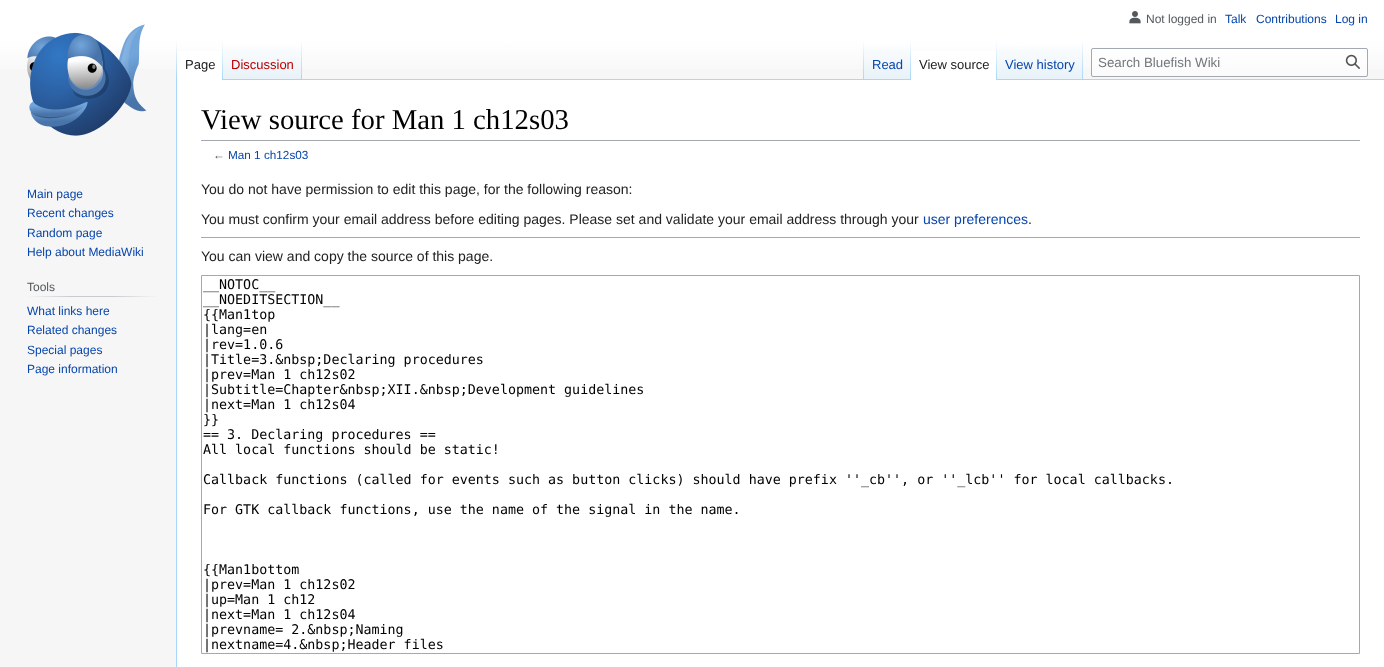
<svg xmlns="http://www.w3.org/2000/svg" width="1384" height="667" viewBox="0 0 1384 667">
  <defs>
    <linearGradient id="g1" gradientUnits="userSpaceOnUse" x1="692" y1="0" x2="692" y2="80"><stop offset="0.5" stop-color="#fff"/><stop offset="1" stop-color="#f6f6f6"/></linearGradient>
    <linearGradient id="g2" gradientUnits="userSpaceOnUse" x1="177" y1="40" x2="177" y2="80"><stop offset="0" stop-color="#a7d7f9" stop-opacity="0"/><stop offset="1" stop-color="#a7d7f9"/></linearGradient>
    <linearGradient id="g3" gradientUnits="userSpaceOnUse" x1="223" y1="40" x2="223" y2="80"><stop offset="0" stop-color="#fff"/><stop offset="1" stop-color="#a7d7f9"/></linearGradient>
    <linearGradient id="g4" gradientUnits="userSpaceOnUse" x1="263" y1="80" x2="263" y2="40"><stop offset="0" stop-color="#77c1f6"/><stop offset="0.03" stop-color="#e8f2f8"/><stop offset="1" stop-color="#fff"/></linearGradient>
    <linearGradient id="g5" gradientUnits="userSpaceOnUse" x1="302" y1="40" x2="302" y2="80"><stop offset="0" stop-color="#a7d7f9" stop-opacity="0"/><stop offset="1" stop-color="#a7d7f9"/></linearGradient>
    <linearGradient id="g6" gradientUnits="userSpaceOnUse" x1="864" y1="40" x2="864" y2="80"><stop offset="0" stop-color="#a7d7f9" stop-opacity="0"/><stop offset="1" stop-color="#a7d7f9"/></linearGradient>
    <linearGradient id="g7" gradientUnits="userSpaceOnUse" x1="888" y1="80" x2="888" y2="40"><stop offset="0" stop-color="#77c1f6"/><stop offset="0.03" stop-color="#e8f2f8"/><stop offset="1" stop-color="#fff"/></linearGradient>
    <linearGradient id="g8" gradientUnits="userSpaceOnUse" x1="911" y1="40" x2="911" y2="80"><stop offset="0" stop-color="#a7d7f9" stop-opacity="0"/><stop offset="1" stop-color="#a7d7f9"/></linearGradient>
    <linearGradient id="g9" gradientUnits="userSpaceOnUse" x1="997" y1="40" x2="997" y2="80"><stop offset="0" stop-color="#fff"/><stop offset="1" stop-color="#a7d7f9"/></linearGradient>
    <linearGradient id="g10" gradientUnits="userSpaceOnUse" x1="1040" y1="80" x2="1040" y2="40"><stop offset="0" stop-color="#77c1f6"/><stop offset="0.03" stop-color="#e8f2f8"/><stop offset="1" stop-color="#fff"/></linearGradient>
    <linearGradient id="g11" gradientUnits="userSpaceOnUse" x1="1083" y1="40" x2="1083" y2="80"><stop offset="0" stop-color="#a7d7f9" stop-opacity="0"/><stop offset="1" stop-color="#a7d7f9"/></linearGradient>
    <linearGradient id="g12" gradientUnits="userSpaceOnUse" x1="27" y1="297" x2="158" y2="297"><stop offset="0" stop-color="#f6f6f6"/><stop offset="0.33" stop-color="#c8ccd1"/><stop offset="0.66" stop-color="#c8ccd1"/><stop offset="1" stop-color="#f6f6f6"/></linearGradient>
  </defs>
  <rect width="100%" height="100%" fill="#f6f6f6"/>
  <path d="M0 0h1384v69H0z" fill="url(#g1)"/>
  <image x="1129" y="11" width="12" height="13" href="img/1.png"/>
  <path d="M176 79h1v588H176z" fill="#a7d7f9"/>
  <path d="M176 40h1v40H176z" fill="url(#g2)"/>
  <path d="M177 51h45v29H177z" fill="#fff"/>
  <path d="M222 40h1v40H222z" fill="url(#g3)"/>
  <path d="M223 46h79v34H223z" fill="url(#g4)"/>
  <path d="M301 40h1v40H301z" fill="url(#g5)"/>
  <path d="M302 79h1082v1H302z" fill="#a7d7f9"/>
  <path d="M863 40h1v40H863z" fill="url(#g6)"/>
  <path d="M864 46h47v33H864z" fill="url(#g7)"/>
  <path d="M910 40h1v40H910z" fill="url(#g8)"/>
  <path d="M911 51h85v29H911z" fill="#fff"/>
  <path d="M996 40h1v40H996z" fill="url(#g9)"/>
  <path d="M997 46h86v33H997z" fill="url(#g10)"/>
  <path d="M1082 40h1v40H1082z" fill="url(#g11)"/>
  <rect x="1091.5" y="48.5" width="276" height="28" rx="1.5" fill="#ffffff80" stroke="#a2a9b1"/>
  <image x="1345" y="54" width="15" height="15" href="img/2.png"/>
  <image x="27" y="24" width="120" height="112" href="img/3.png"/>
  <path d="M27 296h131v1H27z" fill="url(#g12)"/>
  <path d="M177 80h1207v587H177z" fill="#fff"/>
  <path d="M201 140h1159v1H201z" fill="#a2a9b1"/>
  <path d="M201 237h1159v1H201z" fill="#a2a9b1"/>
  <path d="M201.5 275.5h1158v378H201.5z" fill="none" stroke="#a2a9b1"/>
  <text x="1146" y="23" font-family="Liberation Sans" font-size="12" fill="#54595d">Not logged in</text>
  <g font-family="Liberation Sans" font-size="12" fill="#0645ad">
    <text x="1225" y="23">Talk</text>
    <text x="1256" y="23">Contributions</text>
    <text x="1335" y="23">Log in</text>
  </g>
  <text x="185" y="69" font-family="Liberation Sans" font-size="13" fill="#202122">Page</text>
  <text x="231" y="69" font-family="Liberation Sans" font-size="13" fill="#ba0000">Discussion</text>
  <text x="872" y="69" font-family="Liberation Sans" font-size="13" fill="#0645ad">Read</text>
  <text x="919" y="69" font-family="Liberation Sans" font-size="13" fill="#202122">View source</text>
  <text x="1005" y="69" font-family="Liberation Sans" font-size="13" fill="#0645ad">View history</text>
  <text x="1098" y="67" font-family="Liberation Sans" font-size="13.33" fill="#72777d">Search Bluefish Wiki</text>
  <g font-family="Liberation Sans" font-size="12" fill="#0645ad">
    <text x="27" y="198">Main page</text>
    <text x="27" y="217">Recent changes</text>
    <text x="27" y="237">Random page</text>
    <text x="27" y="256">Help about MediaWiki</text>
  </g>
  <text x="27" y="291" font-family="Liberation Sans" font-size="12" fill="#54595d">Tools</text>
  <g font-family="Liberation Sans" font-size="12" fill="#0645ad">
    <text x="27" y="315">What links here</text>
    <text x="27" y="334">Related changes</text>
    <text x="27" y="354">Special pages</text>
    <text x="27" y="373">Page information</text>
  </g>
  <text x="201" y="129" font-family="Liberation Serif" font-size="28.75" fill="#000">View source for Man 1 ch12s03</text>
  <text x="213" y="159" font-family="Liberation Sans" font-size="11.75" fill="#54595d">←</text>
  <text x="228" y="159" font-family="Liberation Sans" font-size="11.75" fill="#0645ad">Man 1 ch12s03</text>
  <g font-family="Liberation Sans" font-size="14" fill="#202122">
    <text x="201" y="194">You do not have permission to edit this page, for the following reason:</text>
    <text x="201" y="224">You must confirm your email address before editing pages. Please set and validate your email address through your</text>
  </g>
  <text x="923" y="224" font-family="Liberation Sans" font-size="14" fill="#0645ad">user preferences</text>
  <g font-family="Liberation Sans" font-size="14" fill="#202122">
    <text x="1028" y="224">.</text>
    <text x="201" y="261">You can view and copy the source of this page.</text>
  </g>
  <g font-family="DejaVu Sans Mono" font-size="13.33" fill="#000">
    <text x="203" y="289">__NOTOC__</text>
    <text x="203" y="304">__NOEDITSECTION__</text>
    <text x="203" y="319">{{Man1top</text>
    <text x="203" y="334">|lang=en</text>
    <text x="203" y="349">|rev=1.0.6</text>
    <text x="203" y="364">|Title=3.&amp;nbsp;Declaring procedures</text>
    <text x="203" y="379">|prev=Man 1 ch12s02</text>
    <text x="203" y="394">|Subtitle=Chapter&amp;nbsp;XII.&amp;nbsp;Development guidelines</text>
    <text x="203" y="409">|next=Man 1 ch12s04</text>
    <text x="203" y="424">}}</text>
    <text x="203" y="439">== 3. Declaring procedures ==</text>
    <text x="203" y="454">All local functions should be static!</text>
    <text x="203" y="484">Callback functions (called for events such as button clicks) should have prefix ''_cb'', or ''_lcb'' for local callbacks.</text>
    <text x="203" y="514">For GTK callback functions, use the name of the signal in the name.</text>
    <text x="203" y="574">{{Man1bottom</text>
    <text x="203" y="589">|prev=Man 1 ch12s02</text>
    <text x="203" y="604">|up=Man 1 ch12</text>
    <text x="203" y="619">|next=Man 1 ch12s04</text>
    <text x="203" y="634">|prevname= 2.&amp;nbsp;Naming</text>
    <text x="203" y="649">|nextname=4.&amp;nbsp;Header files</text>
  </g>
</svg>
